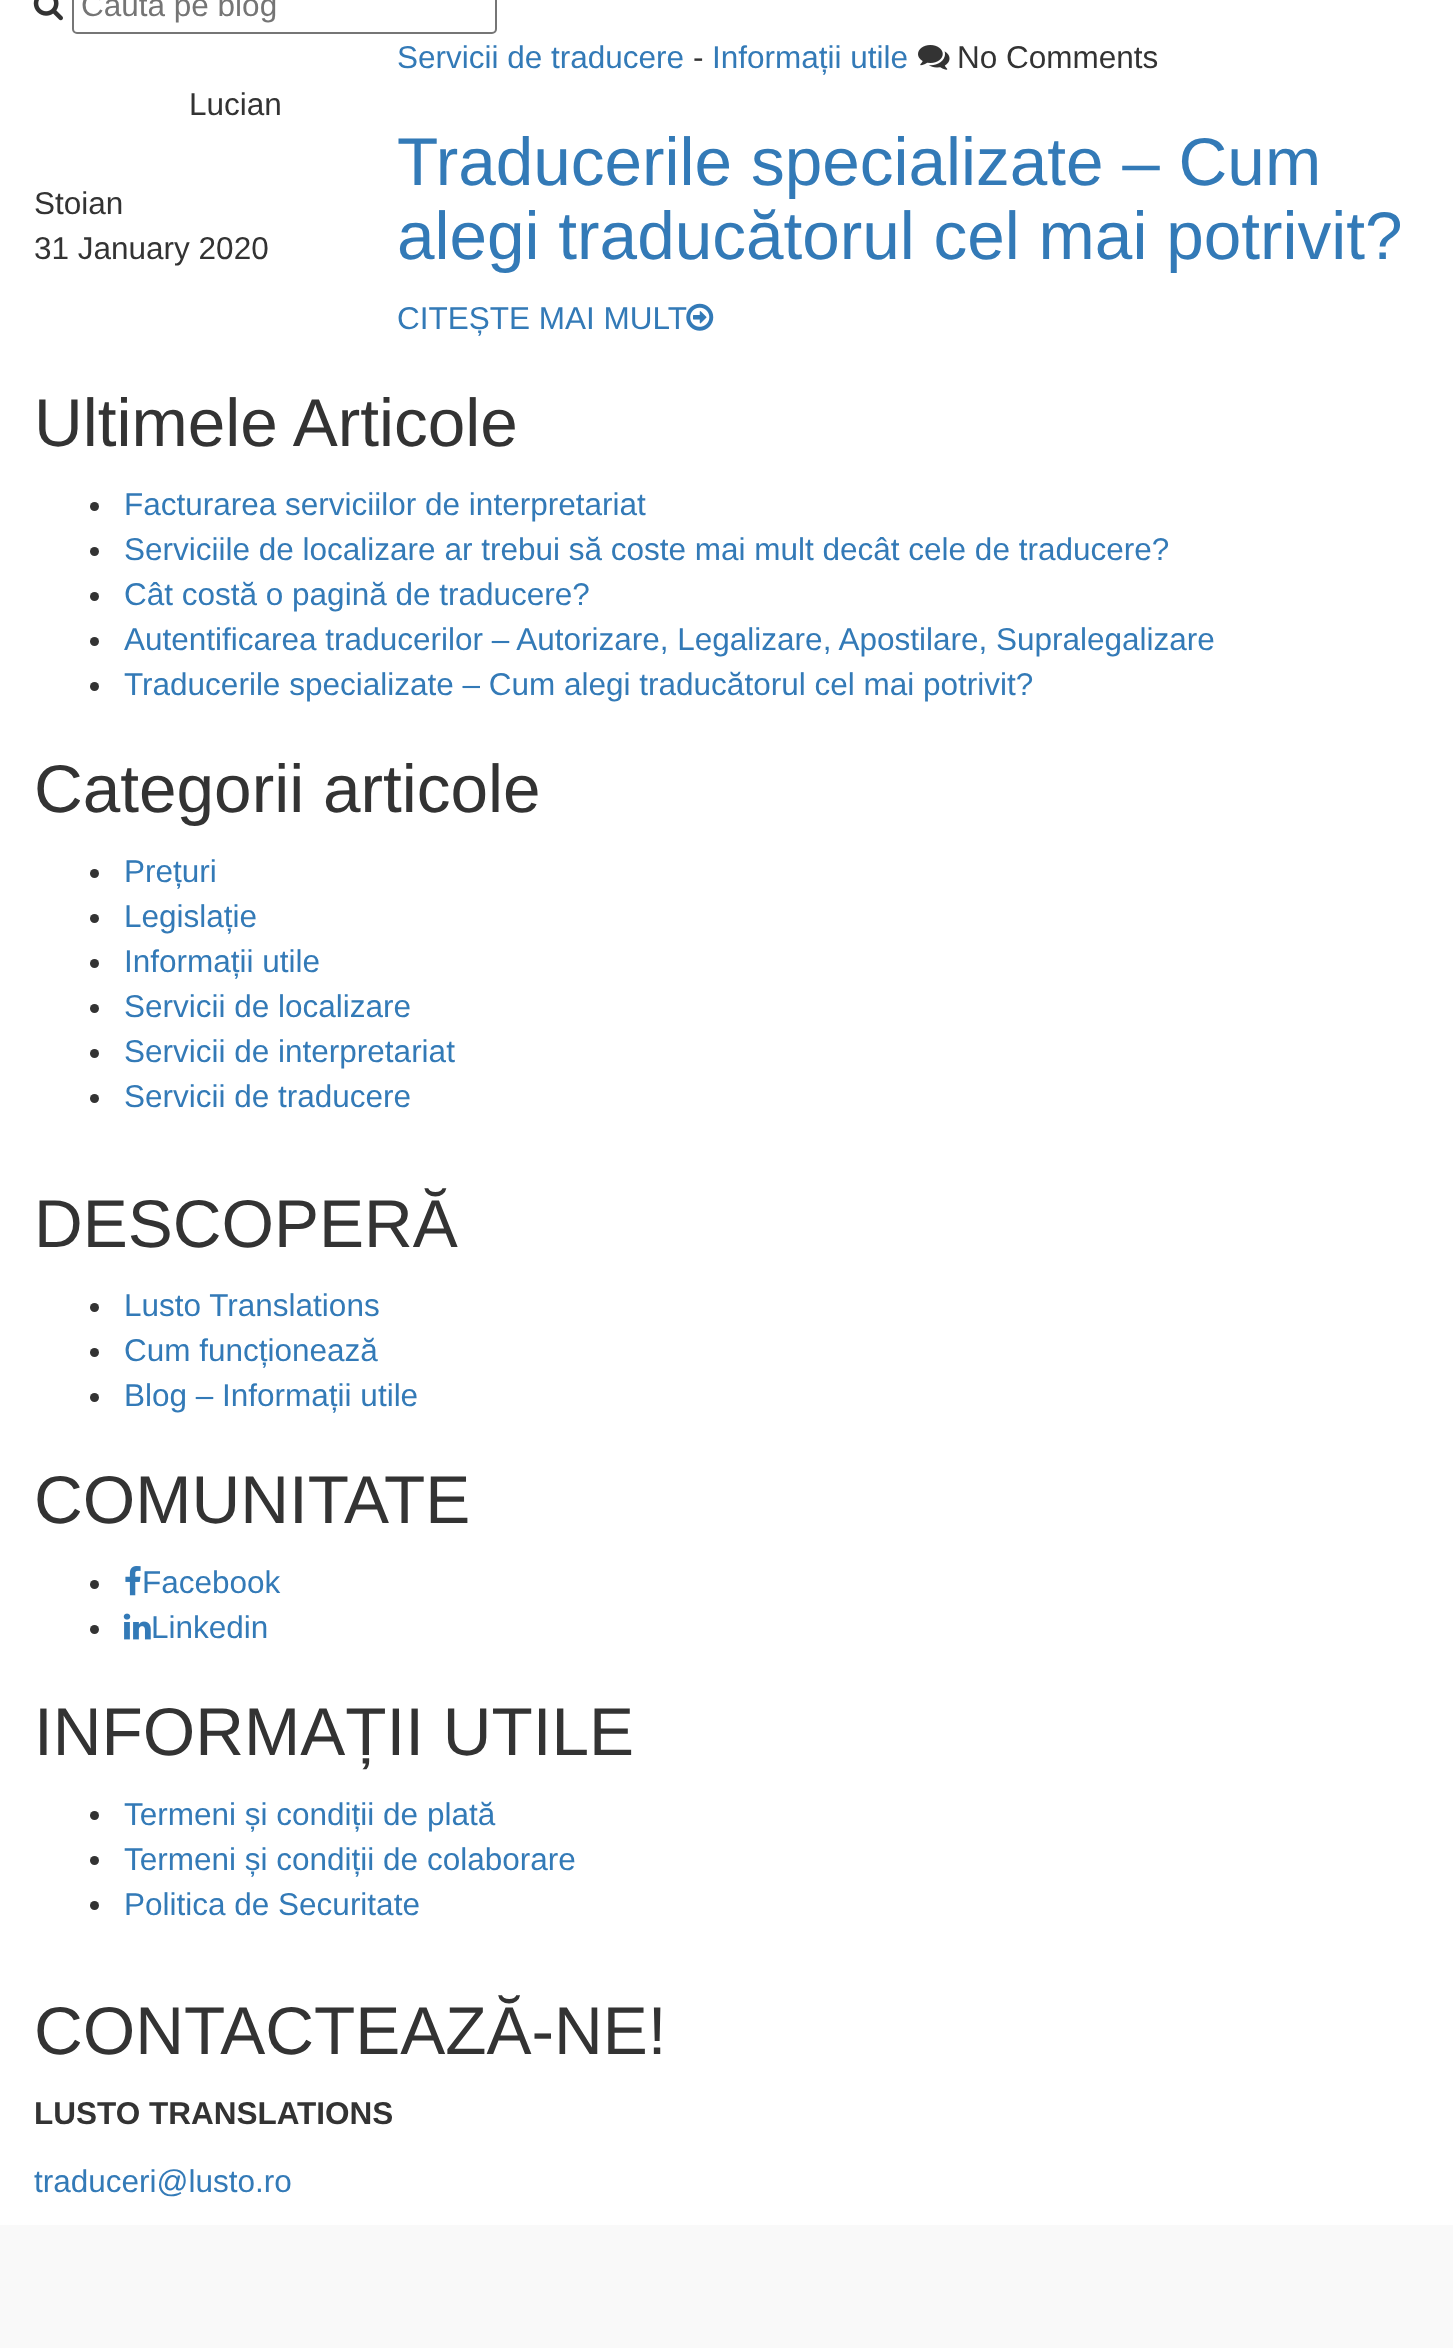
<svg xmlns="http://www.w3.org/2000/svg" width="1453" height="2348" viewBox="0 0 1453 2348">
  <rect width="100%" height="100%" fill="#fff"/>
  <image x="33" y="0" width="30" height="21" href="img/1.png"/>
  <rect x="73" y="-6" width="423" height="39" rx="4" fill="none" stroke="#767676" stroke-width="2"/>
  <image x="918" y="45" width="32" height="25" href="img/2.png"/>
  <circle cx="94.5" cy="506.5" r="4.5" fill="#333"/>
  <circle cx="94.5" cy="551.5" r="4.5" fill="#333"/>
  <circle cx="94.5" cy="596.5" r="4.5" fill="#333"/>
  <circle cx="94.5" cy="641.5" r="4.5" fill="#333"/>
  <circle cx="94.5" cy="686.5" r="4.5" fill="#333"/>
  <circle cx="94.5" cy="873.5" r="4.5" fill="#333"/>
  <circle cx="94.5" cy="918.5" r="4.5" fill="#333"/>
  <circle cx="94.5" cy="963.5" r="4.5" fill="#333"/>
  <circle cx="94.5" cy="1008.5" r="4.5" fill="#333"/>
  <circle cx="94.5" cy="1053.5" r="4.5" fill="#333"/>
  <circle cx="94.5" cy="1098.5" r="4.5" fill="#333"/>
  <circle cx="94.5" cy="1307.5" r="4.5" fill="#333"/>
  <circle cx="94.5" cy="1352.5" r="4.5" fill="#333"/>
  <circle cx="94.5" cy="1397.5" r="4.5" fill="#333"/>
  <circle cx="94.5" cy="1584.5" r="4.5" fill="#333"/>
  <image x="125" y="1566" width="16" height="30" href="img/4.png"/>
  <circle cx="94.5" cy="1629.5" r="4.5" fill="#333"/>
  <image x="123" y="1613" width="28" height="27" href="img/5.png"/>
  <circle cx="94.5" cy="1815.5" r="4.5" fill="#333"/>
  <circle cx="94.5" cy="1860.5" r="4.5" fill="#333"/>
  <circle cx="94.5" cy="1905.5" r="4.5" fill="#333"/>
  <path d="M0 2225h1453v123H0z" fill="#f9f9f9"/>
  <text x="81" y="16" font-family="Liberation Sans" font-size="31.5" fill="#757575">Caută pe blog</text>
  <g font-family="Liberation Sans" font-size="31.5" fill="#333">
    <text x="189" y="115">Lucian</text>
    <text x="34" y="214">Stoian</text>
    <text x="34" y="259">31 January 2020</text>
  </g>
  <text x="397" y="68" font-family="Liberation Sans" font-size="31.5" fill="#337ab7">Servicii de traducere</text>
  <text x="693" y="68" font-family="Liberation Sans" font-size="31.5" fill="#333">-</text>
  <text x="712" y="68" font-family="Liberation Sans" font-size="31.5" fill="#337ab7">Informații utile</text>
  <text x="957" y="68" font-family="Liberation Sans" font-size="31.5" fill="#333">No Comments</text>
  <g font-family="Liberation Sans" font-size="67.5" fill="#337ab7">
    <text x="397" y="185">Traducerile specializate – Cum</text>
    <text x="397" y="259">alegi traducătorul cel mai potrivit?</text>
  </g>
  <text x="397" y="329" font-family="Liberation Sans" font-size="31.5" fill="#337ab7">CITEȘTE MAI MULT</text>
  <image x="686" y="303" width="28" height="28" href="img/3.png"/>
  <text x="34" y="446" font-family="Liberation Sans" font-size="67.5" fill="#333">Ultimele Articole</text>
  <g font-family="Liberation Sans" font-size="31.5" fill="#337ab7">
    <text x="124" y="515">Facturarea serviciilor de interpretariat</text>
    <text x="124" y="560">Serviciile de localizare ar trebui să coste mai mult decât cele de traducere?</text>
    <text x="124" y="605">Cât costă o pagină de traducere?</text>
    <text x="124" y="650">Autentificarea traducerilor – Autorizare, Legalizare, Apostilare, Supralegalizare</text>
    <text x="124" y="695">Traducerile specializate – Cum alegi traducătorul cel mai potrivit?</text>
  </g>
  <text x="34" y="812" font-family="Liberation Sans" font-size="67.5" fill="#333">Categorii articole</text>
  <g font-family="Liberation Sans" font-size="31.5" fill="#337ab7">
    <text x="124" y="882">Prețuri</text>
    <text x="124" y="927">Legislație</text>
    <text x="124" y="972">Informații utile</text>
    <text x="124" y="1017">Servicii de localizare</text>
    <text x="124" y="1062">Servicii de interpretariat</text>
    <text x="124" y="1107">Servicii de traducere</text>
  </g>
  <text x="34" y="1247" font-family="Liberation Sans" font-size="67.5" fill="#333">DESCOPERĂ</text>
  <g font-family="Liberation Sans" font-size="31.5" fill="#337ab7">
    <text x="124" y="1316">Lusto Translations</text>
    <text x="124" y="1361">Cum funcționează</text>
    <text x="124" y="1406">Blog – Informații utile</text>
  </g>
  <text x="34" y="1523" font-family="Liberation Sans" font-size="67.5" fill="#333">COMUNITATE</text>
  <g font-family="Liberation Sans" font-size="31.5" fill="#337ab7">
    <text x="142" y="1593">Facebook</text>
    <text x="151" y="1638">Linkedin</text>
  </g>
  <text x="34" y="1755" font-family="Liberation Sans" font-size="67.5" fill="#333">INFORMAȚII UTILE</text>
  <g font-family="Liberation Sans" font-size="31.5" fill="#337ab7">
    <text x="124" y="1825">Termeni și condiții de plată</text>
    <text x="124" y="1870">Termeni și condiții de colaborare</text>
    <text x="124" y="1915">Politica de Securitate</text>
  </g>
  <text x="34" y="2054" font-family="Liberation Sans" font-size="67.5" fill="#333">CONTACTEAZĂ-NE!</text>
  <text x="34" y="2124" font-family="Liberation Sans" font-size="31.5" font-weight="bold" fill="#333">LUSTO TRANSLATIONS</text>
  <text x="34" y="2192" font-family="Liberation Sans" font-size="31.5" fill="#337ab7">traduceri@lusto.ro</text>
</svg>
